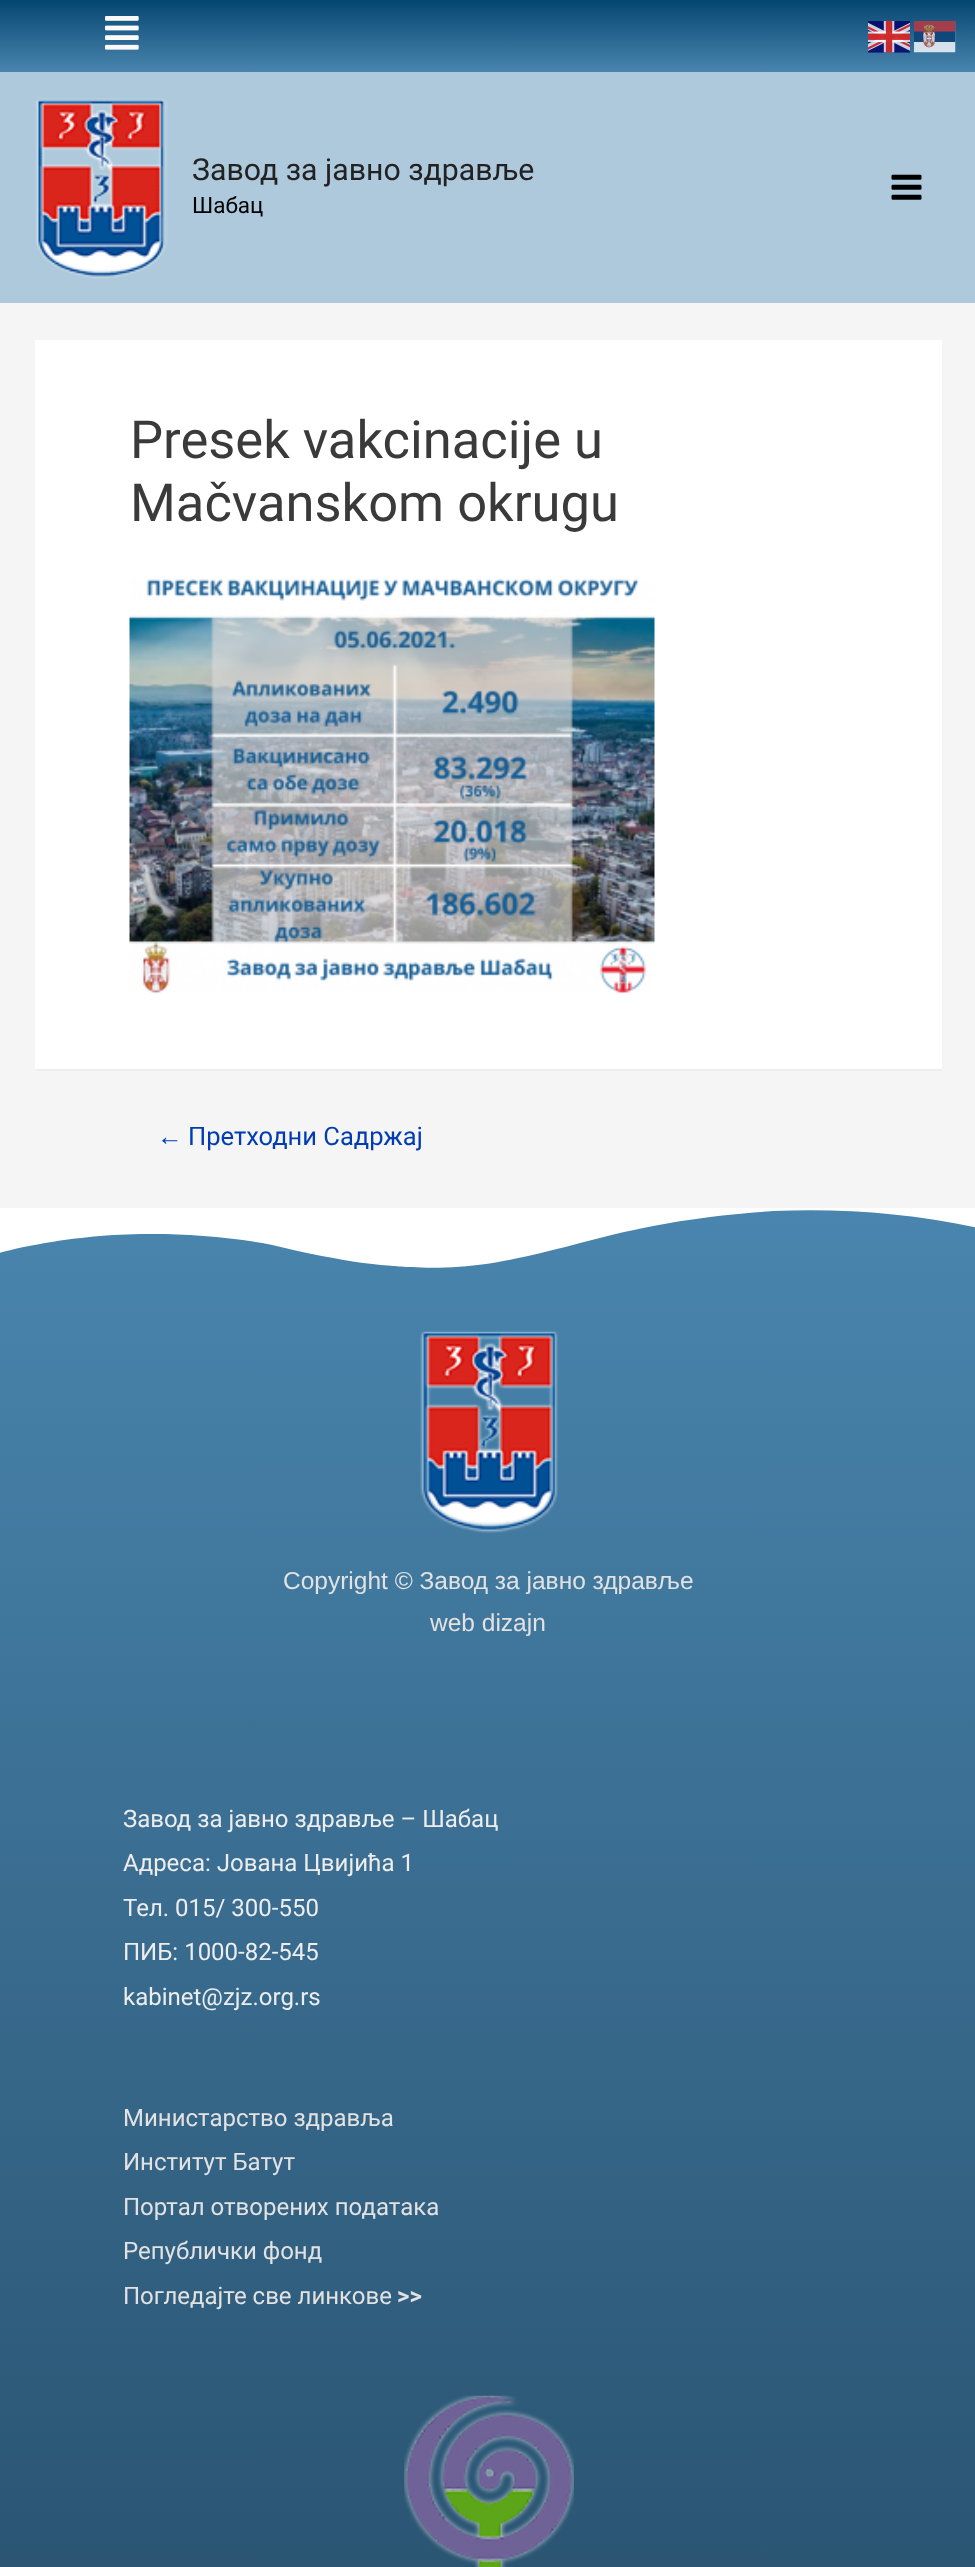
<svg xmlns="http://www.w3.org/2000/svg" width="975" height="2567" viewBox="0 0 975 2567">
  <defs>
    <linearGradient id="g1" gradientUnits="userSpaceOnUse" x1="488" y1="0" x2="488" y2="72"><stop offset="0" stop-color="#054671"/><stop offset="1" stop-color="#4985ae"/></linearGradient>
    <linearGradient id="g2" gradientUnits="userSpaceOnUse" x1="488" y1="1209" x2="488" y2="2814"><stop offset="0" stop-color="#4985ae"/><stop offset="1" stop-color="#254c68"/></linearGradient>
    <clipPath id="clip1"><path d="M0 1208h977v61H0z"/></clipPath>
  </defs>
  <rect width="100%" height="100%" fill="#f5f5f5"/>
  <path d="M0 0h975v72H0z" fill="url(#g1)"/>
  <image x="105" y="16" width="34" height="34" href="img/1.png"/>
  <image x="868" y="21" width="42" height="32" href="img/2.png"/>
  <image x="914" y="21" width="42" height="32" href="img/3.png"/>
  <path d="M0 72h975v231H0z" fill="#adc9db"/>
  <image x="35" y="98" width="133" height="181" href="img/4.png"/>
  <image x="891" y="174" width="31" height="26" href="img/5.png"/>
  <path d="M35 340h907v729H35z" fill="#fff"/>
  <path d="M35 1069h907v2H35z" fill="#eee"/>
  <image x="129" y="578" width="526" height="416" href="img/6.png"/>
  <path d="M0 1210h975v1357H0z" fill="url(#g2)"/>
  <g clip-path="url(#clip1)">
    <path d="M773 1211C715 1215 658 1222 584 1242C555 1250 509 1261 486 1264C463 1267 434 1269 412 1267C402 1267 390 1266 363 1263C336 1259 306 1253 285 1248C245 1238 192 1234 154 1234C69 1233-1 1253-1 1253V1207H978V1228C911 1213 841 1208 773 1211Z" fill="#fff"/>
  </g>
  <image x="420" y="1331" width="138" height="202" href="img/7.png"/>
  <image x="404" y="2395" width="170" height="172" href="img/8.png"/>
  <text x="192" y="180" font-family="Roboto" font-size="30.25" fill="#222">Завод за јавно здравље</text>
  <text x="192" y="213" font-family="Roboto" font-size="22.5" fill="#000">Шабац</text>
  <g font-family="Roboto" font-size="52.5" fill="#3a3a3a">
    <text x="130" y="458">Presek vakcinacije u</text>
    <text x="130" y="521">Mačvanskom okrugu</text>
  </g>
  <text x="157" y="1145" font-family="Liberation Sans" font-size="25.5" fill="#013cb2">←</text>
  <text x="188" y="1145" font-family="Roboto" font-size="25.5" fill="#013cb2">Претходни Садржај</text>
  <g font-family="Liberation Sans" font-size="24.5" fill="#e2e2e2">
    <text x="283" y="1589">Copyright © Завод за јавно здравље</text>
    <text x="430" y="1631">web dizajn</text>
  </g>
  <g font-family="Roboto" font-size="24" fill="#ededed">
    <text x="123" y="1827">Завод за јавно здравље – Шабац</text>
    <text x="123" y="1871">Адреса: Јована Цвијића 1</text>
    <text x="123" y="1916">Тел. 015/ 300-550</text>
    <text x="123" y="1960">ПИБ: 1000-82-545</text>
    <text x="123" y="2005">kabinet@zjz.org.rs</text>
  </g>
  <g font-family="Roboto" font-size="24" fill="#e2e2e2">
    <text x="123" y="2126">Министарство здравља</text>
    <text x="123" y="2170">Институт Батут</text>
    <text x="123" y="2215">Портал отворених података</text>
    <text x="123" y="2259">Републички фонд</text>
    <text x="123" y="2304">Погледајте све линкове</text>
  </g>
  <text x="397" y="2304" font-family="Roboto" font-size="24" font-weight="bold" fill="#e2e2e2">&gt;&gt;</text>
</svg>
